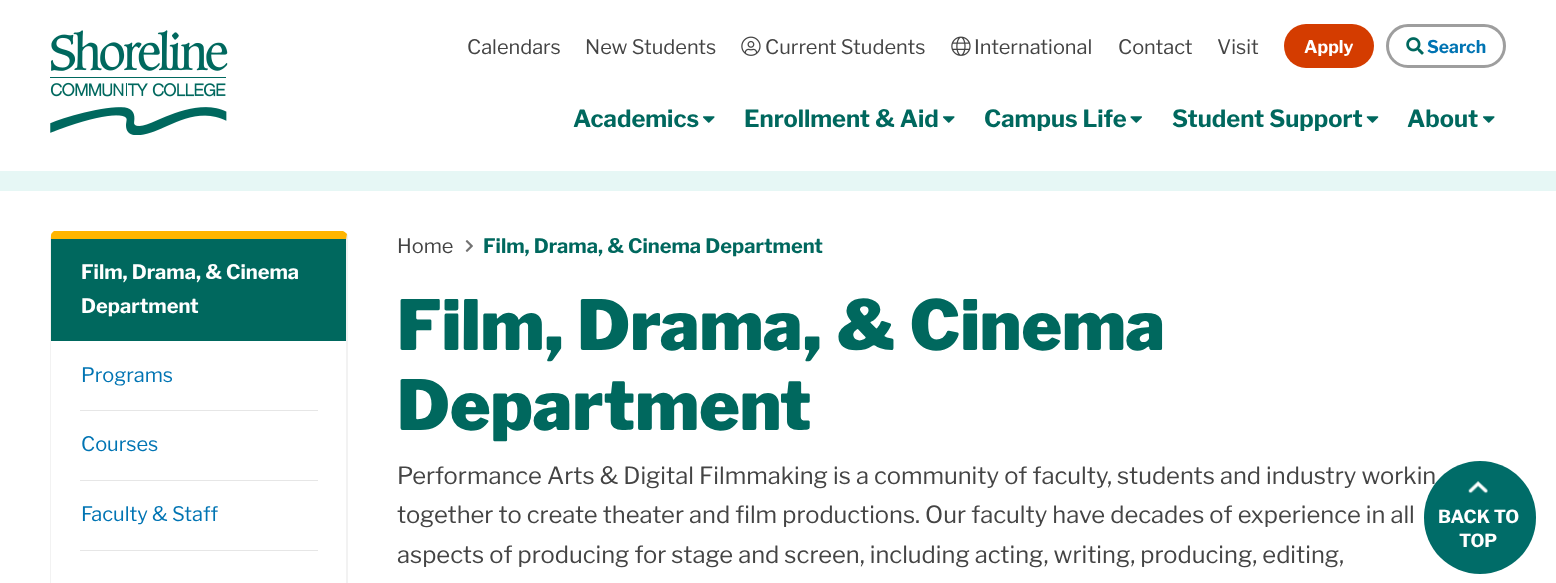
<svg xmlns="http://www.w3.org/2000/svg" width="1556" height="583" viewBox="0 0 1556 583">
  <rect width="100%" height="100%" fill="#fff"/>
  <image x="50" y="30" width="178" height="105" href="img/1.png"/>
  <image x="741" y="36" width="20" height="20" href="img/2.png"/>
  <image x="951" y="36" width="20" height="20" href="img/3.png"/>
  <rect x="1284" y="24" width="90" height="44" rx="22" fill="#d43c00"/>
  <rect x="1387.5" y="25.5" width="117" height="41" rx="20.5" fill="none" stroke="#9e9e9e" stroke-width="3"/>
  <image x="1406" y="37" width="18" height="18" href="img/4.png"/>
  <image x="703" y="116" width="12" height="7" href="img/5.png"/>
  <image x="943" y="116" width="12" height="7" href="img/5.png"/>
  <image x="1130" y="116" width="12" height="7" href="img/6.png"/>
  <image x="1366" y="116" width="13" height="7" href="img/7.png"/>
  <image x="1483" y="116" width="12" height="7" href="img/5.png"/>
  <path d="M0 171h1556v20H0z" fill="#e6f7f5"/>
  <path d="M51 235C51 233 53 232 54 231H343C345 232 346 233 347 234L346 240V239H51Z" fill="#ffb500"/>
  <path d="M348 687L346 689L345 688C346 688 346 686 346 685V240L347 234L348 235Z" fill="#0000000d"/>
  <path d="M50 238V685C50 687 51 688 52 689H53C52 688 51 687 51 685V239V235Z" fill="#f2f2f2"/>
  <path d="M51 239h295v102H51z" fill="#00685e"/>
  <path d="M80 410h238v1H80z" fill="#e6e6e6"/>
  <path d="M80 480h238v1H80z" fill="#e6e6e6"/>
  <path d="M80 550h238v1H80z" fill="#e6e6e6"/>
  <image x="465" y="240" width="8" height="12" href="img/8.png"/>
  <g font-family="Libre Franklin" font-size="20" fill="#444">
    <text x="467" y="54">Calendars</text>
    <text x="585" y="54">New Students</text>
    <text x="765" y="54">Current Students</text>
    <text x="974" y="54">International</text>
    <text x="1118" y="54">Contact</text>
    <text x="1217" y="54">Visit</text>
  </g>
  <text x="1304" y="53" font-family="Libre Franklin" font-size="17.5" font-weight="bold" fill="#fff">Apply</text>
  <text x="1427" y="53" font-family="Libre Franklin" font-size="17.5" font-weight="bold" fill="#0074b3">Search</text>
  <g font-family="Libre Franklin" font-size="23.75" font-weight="bold" fill="#00685e">
    <text x="573" y="127">Academics</text>
    <text x="744" y="127">Enrollment &amp; Aid</text>
    <text x="984" y="127">Campus Life</text>
    <text x="1172" y="127">Student Support</text>
    <text x="1407" y="127">About</text>
  </g>
  <g font-family="Libre Franklin" font-size="20" font-weight="bold" fill="#fff">
    <text x="81" y="279">Film, Drama, &amp; Cinema</text>
    <text x="81" y="313">Department</text>
  </g>
  <g font-family="Libre Franklin" font-size="20" fill="#0074b3">
    <text x="81" y="382">Programs</text>
    <text x="81" y="451">Courses</text>
    <text x="81" y="521">Faculty &amp; Staff</text>
  </g>
  <text x="397" y="253" font-family="Libre Franklin" font-size="20" fill="#444">Home</text>
  <text x="483" y="253" font-family="Libre Franklin" font-size="20" font-weight="bold" fill="#00685e">Film, Drama, &amp; Cinema Department</text>
  <g font-family="Libre Franklin" font-size="68.75" font-weight="900" fill="#00685e">
    <text x="397" y="350">Film, Drama, &amp; Cinema</text>
    <text x="397" y="430">Department</text>
  </g>
  <g font-family="Libre Franklin" font-size="23.75" fill="#444">
    <text x="397" y="484">Performance Arts &amp; Digital Filmmaking is a community of faculty, students and industry workin</text>
    <text x="397" y="523">together to create theater and film productions. Our faculty have decades of experience in all</text>
    <text x="397" y="563">aspects of producing for stage and screen, including acting, writing, producing, editing,</text>
  </g>
  <rect x="1424" y="461" width="112" height="113" rx="56" fill="#006c68"/>
  <image x="1468" y="481" width="20" height="13" href="img/9.png"/>
  <g font-family="Libre Franklin" font-size="18" font-weight="bold" fill="#fff">
    <text x="1438" y="523">BACK TO</text>
    <text x="1459" y="547">TOP</text>
  </g>
</svg>
